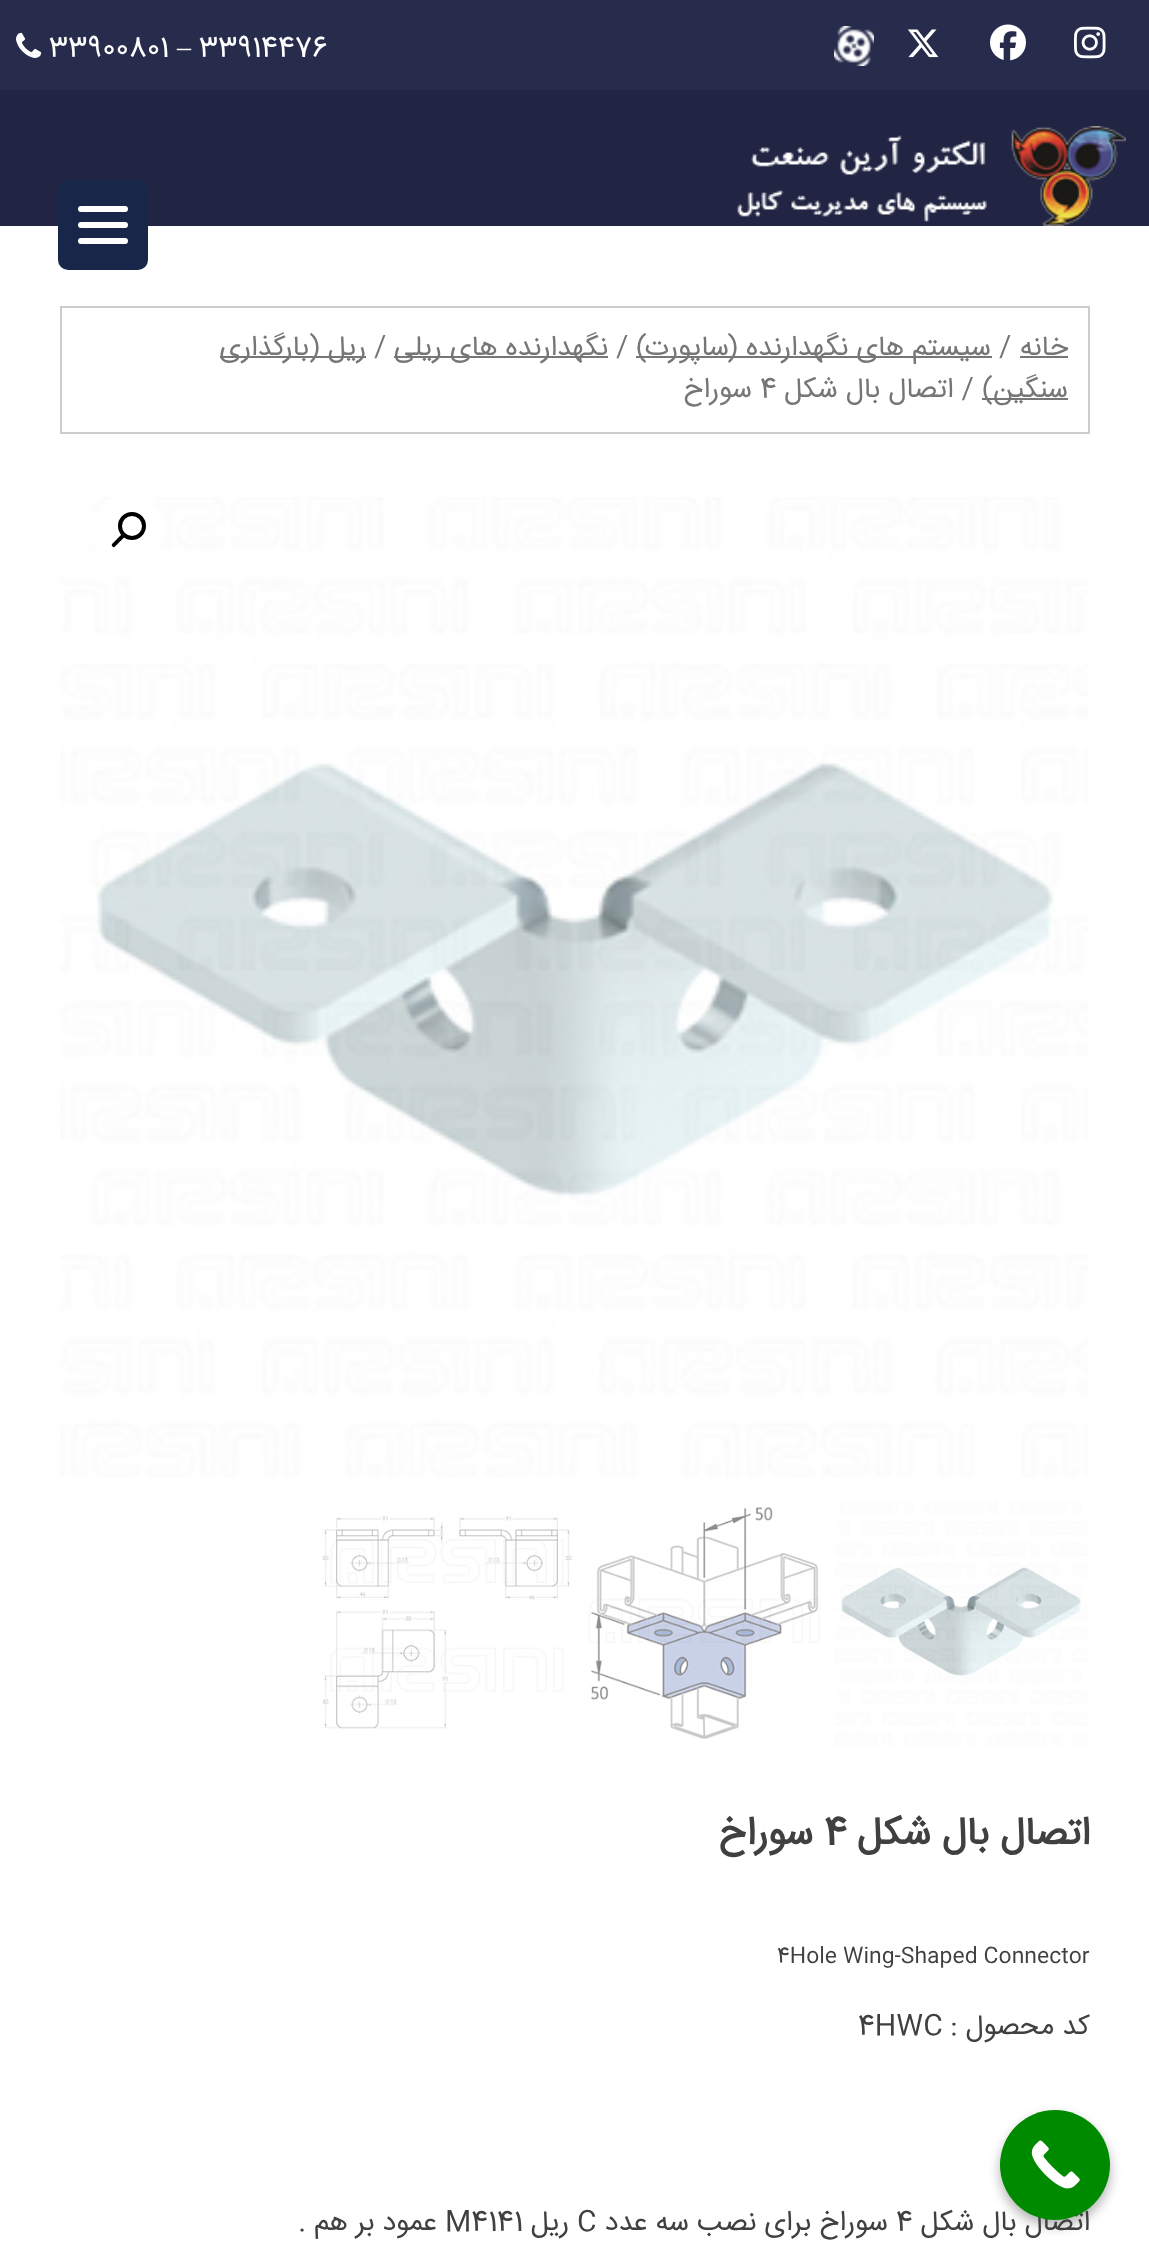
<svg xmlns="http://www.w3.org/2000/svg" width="1149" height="2250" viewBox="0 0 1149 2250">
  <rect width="100%" height="100%" fill="#fff"/>
  <path d="M0 0h1149v90H0z" fill="#272c4c"/>
  <image x="1074" y="26" width="32" height="33" href="img/1.png"/>
  <image x="990" y="24" width="36" height="37" href="img/2.png"/>
  <image x="907" y="29" width="32" height="29" href="img/3.png"/>
  <image x="834" y="26" width="40" height="40" href="img/4.png"/>
  <image x="16" y="32" width="26" height="26" href="img/5.png"/>
  <path d="M0 90h1149v136H0z" fill="#212543"/>
  <image x="737" y="126" width="389" height="100" href="img/6.png"/>
  <path d="M61 307h1028v126H61z" fill="none" stroke="#ccc" stroke-width="2"/>
  <path d="M1020 356h48v2H1020z" fill="#767676"/>
  <path d="M636 356h356v2H636z" fill="#767676"/>
  <path d="M394 356h214v2H394z" fill="#767676"/>
  <path d="M220 356h146v2H220z" fill="#767676"/>
  <path d="M982 398h86v2H982z" fill="#767676"/>
  <image x="60" y="497" width="1028" height="980" href="img/7.png"/>
  <circle cx="128" cy="530" r="36" fill="#fff"/>
  <circle cx="132" cy="526" r="12" fill="none" stroke="#000" stroke-width="4"/>
  <path d="M123.5 535C124.5 536 124.5 537 123.5 538L115 546.5C114.5 547.5 113 547.5 112.5 546.5C111.5 545.5 111.5 544.5 112.5 543.5L121 535C121.5 534.5 123 534.5 123.5 535Z" fill="#000"/>
  <image x="835" y="1501" width="254" height="245" href="img/8.png"/>
  <image x="588" y="1507" width="232" height="232" href="img/9.png"/>
  <image x="322" y="1516" width="250" height="213" href="img/10.png"/>
  <rect x="58" y="180" width="90" height="90" rx="10" fill="#182749"/>
  <rect x="78" y="222" width="50" height="6" rx="3" fill="#fff"/>
  <rect x="78" y="206" width="50" height="6" rx="3" fill="#fff"/>
  <rect x="78" y="238" width="50" height="6" rx="3" fill="#fff"/>
  <rect x="1000" y="2116" width="110" height="110" rx="55" fill="#0000004d" filter="blur(6px)"/>
  <text x="199" y="56" font-family="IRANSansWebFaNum" font-size="28" fill="#fff">33914476</text>
  <text x="177" y="56" font-family="Liberation Serif" font-size="28" fill="#fff">–</text>
  <text x="49" y="56" font-family="IRANSansWebFaNum" font-size="28" fill="#fff">33900801</text>
  <text x="1068" y="355" font-family="IRANSansWebFaNum" font-size="28" direction="rtl" fill="#767676">خانه</text>
  <text x="999" y="355" font-family="IRANSansWebFaNum" font-size="28" fill="#767676">/</text>
  <text x="991" y="355" font-family="IRANSansWebFaNum" font-size="28" direction="rtl" fill="#767676">سیستم های نگهدارنده (ساپورت)</text>
  <text x="616" y="355" font-family="IRANSansWebFaNum" font-size="28" fill="#767676">/</text>
  <text x="608" y="355" font-family="IRANSansWebFaNum" font-size="28" direction="rtl" fill="#767676">نگهدارنده های ریلی</text>
  <text x="374" y="355" font-family="IRANSansWebFaNum" font-size="28" fill="#767676">/</text>
  <g font-family="IRANSansWebFaNum" font-size="28" direction="rtl" fill="#767676">
    <text x="366" y="355">ریل (بارگذاری</text>
    <text x="1068" y="397">سنگین)</text>
    <text x="974" y="397">/ اتصال بال شکل</text>
  </g>
  <text x="760" y="397" font-family="IRANSansWebFaNum" font-size="28" fill="#767676">4</text>
  <text x="752" y="397" font-family="IRANSansWebFaNum" font-size="28" direction="rtl" fill="#767676">سوراخ</text>
  <text x="1090" y="1844" font-family="IRANSansWebFaNum" font-size="38.5" font-weight="bold" direction="rtl" fill="#404040">اتصال بال شکل</text>
  <text x="824" y="1844" font-family="IRANSansWebFaNum" font-size="38.5" font-weight="bold" fill="#404040">4</text>
  <text x="813" y="1844" font-family="IRANSansWebFaNum" font-size="38.5" font-weight="bold" direction="rtl" fill="#404040">سوراخ</text>
  <text x="777" y="1962" font-family="IRANSansWebFaNum" font-size="21.3" fill="#404040">4Hole Wing-Shaped Connector</text>
  <text x="1090" y="2034" font-family="IRANSansWebFaNum" font-size="28" direction="rtl" fill="#404040">کد محصول :</text>
  <text x="858" y="2034" font-family="IRANSansWebFaNum" font-size="28" fill="#404040">4HWC</text>
  <text x="1090" y="2230" font-family="IRANSansWebFaNum" font-size="28" direction="rtl" fill="#404040">اتصال بال شکل</text>
  <text x="896" y="2230" font-family="IRANSansWebFaNum" font-size="28" fill="#404040">4</text>
  <text x="888" y="2230" font-family="IRANSansWebFaNum" font-size="28" direction="rtl" fill="#404040">سوراخ برای نصب سه عدد</text>
  <text x="577" y="2230" font-family="IRANSansWebFaNum" font-size="28" fill="#404040">C</text>
  <text x="569" y="2230" font-family="IRANSansWebFaNum" font-size="28" direction="rtl" fill="#404040">ریل</text>
  <text x="445" y="2230" font-family="IRANSansWebFaNum" font-size="28" fill="#404040">M4141</text>
  <text x="437" y="2230" font-family="IRANSansWebFaNum" font-size="28" direction="rtl" fill="#404040">عمود بر هم .</text>
  <circle cx="1055" cy="2165" r="55" fill="#008a00"/>
  <image x="1031" y="2140" width="49" height="49" href="img/11.png"/>
</svg>
